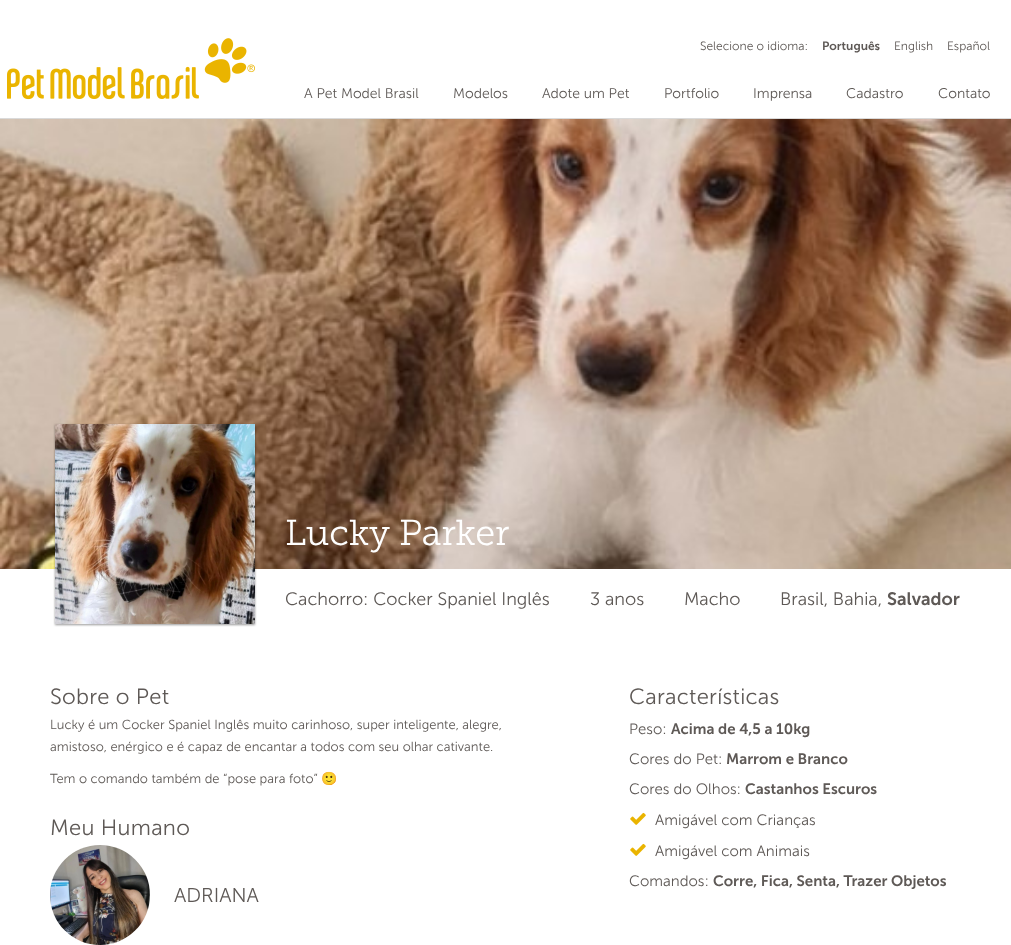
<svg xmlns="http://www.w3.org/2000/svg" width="1011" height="945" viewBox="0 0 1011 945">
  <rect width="100%" height="100%" fill="#fff"/>
  <path d="M0 118h1011v1H0z" fill="#dadada"/>
  <image x="7" y="38" width="248" height="62" href="img/1.png"/>
  <image x="0" y="119" width="1011" height="450" href="img/2.png"/>
  <path d="M55 425h200v200H55z" fill="#00000066" filter="blur(1px)"/>
  <image x="55" y="424" width="200" height="200" href="img/3.png"/>
  <image x="50" y="845" width="100" height="100" href="img/4.png"/>
  <image x="630" y="812" width="16" height="13" href="img/5.png"/>
  <image x="630" y="843" width="16" height="13" href="img/5.png"/>
  <text x="700" y="50" font-family="Museo Sans" font-size="12" font-weight="300" fill="#5e5956">Selecione o idioma:</text>
  <text x="822" y="50" font-family="Museo Sans" font-size="12" font-weight="600" fill="#5e5956">Português</text>
  <g font-family="Museo Sans" font-size="12" font-weight="300" fill="#5e5956">
    <text x="894" y="50">English</text>
    <text x="947" y="50">Español</text>
  </g>
  <g font-family="Museo Sans" font-size="14" font-weight="300" fill="#5e5956">
    <text x="304" y="98">A Pet Model Brasil</text>
    <text x="453" y="98">Modelos</text>
    <text x="542" y="98">Adote um Pet</text>
    <text x="664" y="98">Portfolio</text>
    <text x="753" y="98">Imprensa</text>
    <text x="846" y="98">Cadastro</text>
    <text x="938" y="98">Contato</text>
  </g>
  <text x="285" y="545" font-family="Museo Slab" font-size="36" font-weight="300" fill="#fff">Lucky Parker</text>
  <g font-family="Museo Sans" font-size="18" font-weight="300" fill="#5e5956">
    <text x="285" y="605">Cachorro: Cocker Spaniel Inglês</text>
    <text x="590" y="605">3 anos</text>
    <text x="684" y="605">Macho</text>
    <text x="780" y="605">Brasil, Bahia,</text>
  </g>
  <text x="887" y="605" font-family="Museo Sans" font-size="18" font-weight="600" fill="#5e5956">Salvador</text>
  <text x="50" y="704" font-family="Museo Sans" font-size="22" font-weight="300" letter-spacing="0.25" fill="#5e5956">Sobre o Pet</text>
  <g font-family="Museo Sans" font-size="13" font-weight="300" fill="#5e5956">
    <text x="50" y="729">Lucky é um Cocker Spaniel Inglês muito carinhoso, super inteligente, alegre,</text>
    <text x="50" y="751">amistoso, enérgico e é capaz de encantar a todos com seu olhar cativante.</text>
    <text x="50" y="783">Tem o comando também de “pose para foto”</text>
  </g>
  <text x="321" y="783" font-family="Noto Color Emoji" font-size="13" fill="#5e5956">🙂</text>
  <text x="50" y="835" font-family="Museo Sans" font-size="22" font-weight="300" letter-spacing="0.25" fill="#5e5956">Meu Humano</text>
  <text x="174" y="902" font-family="Museo Sans" font-size="20" font-weight="300" fill="#5e5956">ADRIANA</text>
  <text x="629" y="704" font-family="Museo Sans" font-size="22" font-weight="300" letter-spacing="0.25" fill="#5e5956">Características</text>
  <text x="629" y="734" font-family="Museo Sans" font-size="15" font-weight="300" fill="#5e5956">Peso:</text>
  <text x="671" y="734" font-family="Museo Sans" font-size="15" font-weight="600" fill="#5e5956">Acima de 4,5 a 10kg</text>
  <text x="629" y="764" font-family="Museo Sans" font-size="15" font-weight="300" fill="#5e5956">Cores do Pet:</text>
  <text x="726" y="764" font-family="Museo Sans" font-size="15" font-weight="600" fill="#5e5956">Marrom e Branco</text>
  <text x="629" y="794" font-family="Museo Sans" font-size="15" font-weight="300" fill="#5e5956">Cores do Olhos:</text>
  <text x="745" y="794" font-family="Museo Sans" font-size="15" font-weight="600" fill="#5e5956">Castanhos Escuros</text>
  <g font-family="Museo Sans" font-size="15" font-weight="300" fill="#5e5956">
    <text x="655" y="825">Amigável com Crianças</text>
    <text x="655" y="856">Amigável com Animais</text>
    <text x="629" y="886">Comandos:</text>
  </g>
  <text x="713" y="886" font-family="Museo Sans" font-size="15" font-weight="600" fill="#5e5956">Corre, Fica, Senta, Trazer Objetos</text>
</svg>
